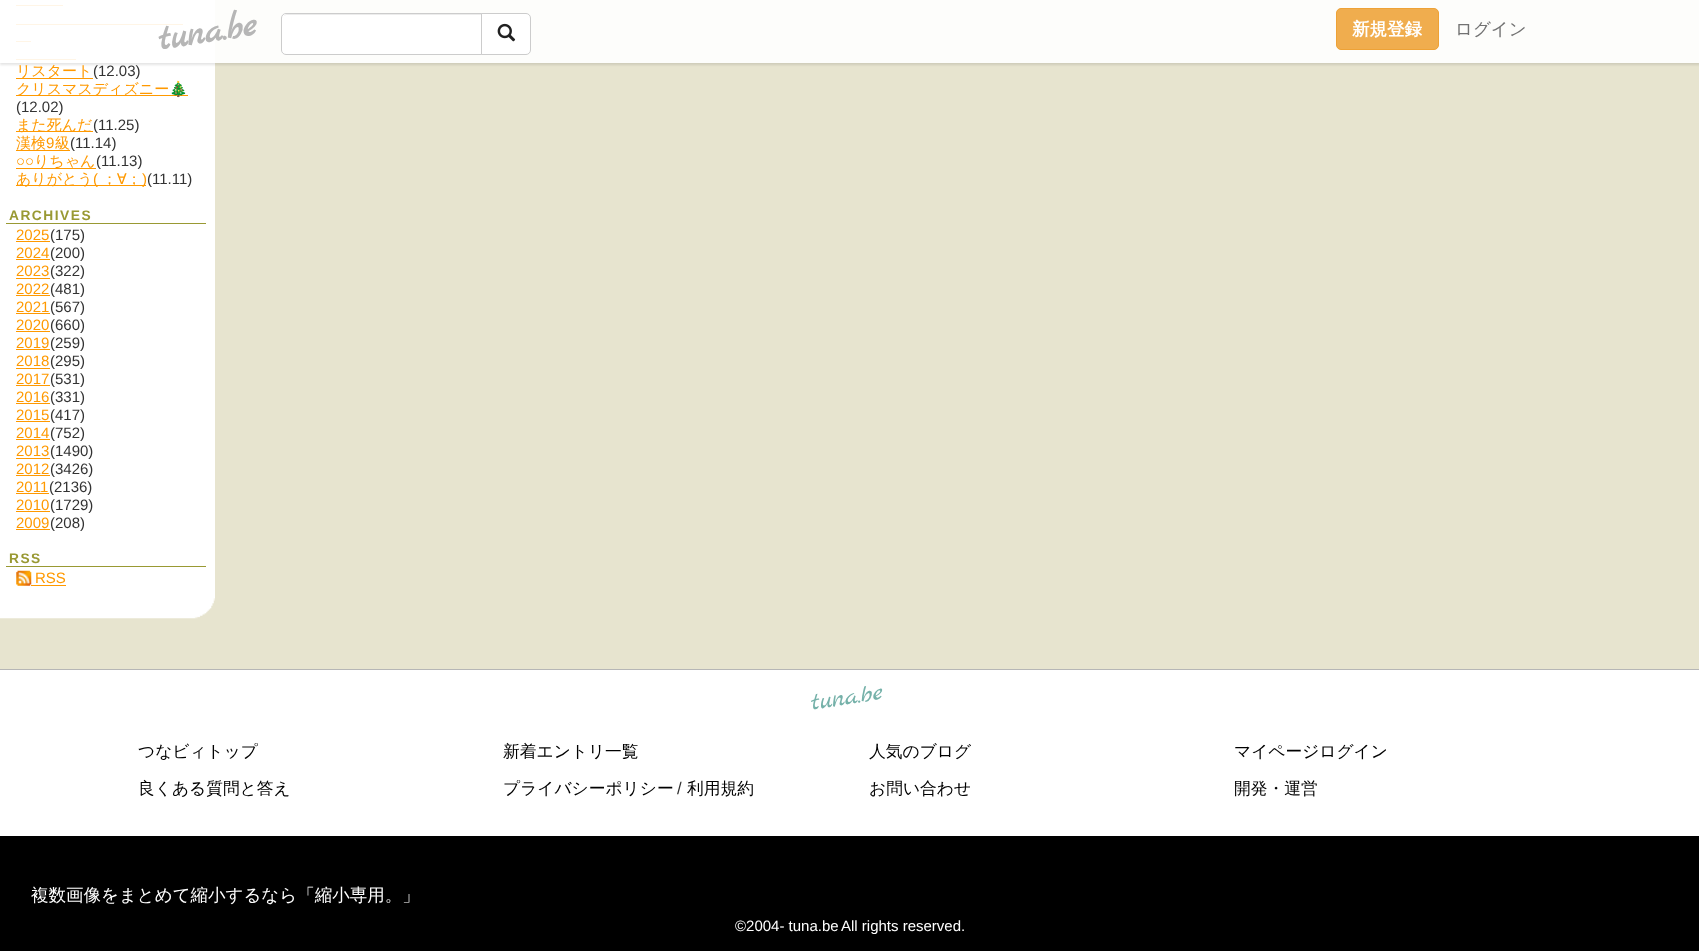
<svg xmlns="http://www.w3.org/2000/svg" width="1699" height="951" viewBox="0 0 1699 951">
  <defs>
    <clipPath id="clip1"><path d="M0 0H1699V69H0ZM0 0H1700V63H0Z" clip-rule="evenodd"/></clipPath>
    <clipPath id="clip2"><path d="M810 695L882 683.5L890 733L818 744Z"/></clipPath>
  </defs>
  <rect width="100%" height="100%" fill="#e7e4cf"/>
  <path d="M0 0h215v594H0z" fill="#fff"/>
  <path d="M16 5h47v1H16z" fill="#f90"/>
  <path d="M16 24h167v1H16z" fill="#f90"/>
  <path d="M16 41h15v1H16z" fill="#f90"/>
  <path d="M16 59h60v1H16z" fill="#f90"/>
  <g clip-path="url(#clip1)">
    <path d="M0 3h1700v62H0z" fill="#0000001a" filter="blur(1px)"/>
  </g>
  <path d="M0 0h1699v63H0z" fill="#ffffffe6"/>
  <path d="M286 13H483V55H286C283 55 281 53 281 50V18C281 15 283 13 286 13Z" fill="#fff"/>
  <path d="M286 15H481V14H287C286 14 284 15 284 16Z" fill="#ececec"/>
  <path d="M286 13.5H482.5V54.5H286C283.5 54.5 281.5 52.5 281.5 50V18C281.5 15.5 283.5 13.5 286 13.5Z" fill="none" stroke="#ccc"/>
  <path d="M481.5 13.5H526C528.5 13.5 530.5 15.5 530.5 18V50C530.5 52.5 528.5 54.5 526 54.5H481.5Z" fill="#fff" stroke="#ccc"/>
  <image x="497" y="23" width="19" height="19" href="img/1.png"/>
  <rect x="1336.5" y="8.5" width="102" height="41" rx="4.5" fill="#f0ad4e" stroke="#eea236"/>
  <path d="M16 78h77v1H16z" fill="#f90"/>
  <path d="M16 95h172v1H16z" fill="#f90"/>
  <path d="M16 131h77v1H16z" fill="#f90"/>
  <path d="M16 150h54v1H16z" fill="#f90"/>
  <path d="M16 168h80v1H16z" fill="#f90"/>
  <path d="M16 185h130v1H16z" fill="#f90"/>
  <path d="M6 223h200v1H6z" fill="#993"/>
  <path d="M16 241h34v1H16z" fill="#f90"/>
  <path d="M16 259h34v1H16z" fill="#f90"/>
  <path d="M16 278h34v1H16z" fill="#f90"/>
  <path d="M16 295h34v1H16z" fill="#f90"/>
  <path d="M16 313h34v1H16z" fill="#f90"/>
  <path d="M16 331h34v1H16z" fill="#f90"/>
  <path d="M16 349h34v1H16z" fill="#f90"/>
  <path d="M16 368h34v1H16z" fill="#f90"/>
  <path d="M16 385h34v1H16z" fill="#f90"/>
  <path d="M16 403h34v1H16z" fill="#f90"/>
  <path d="M16 421h34v1H16z" fill="#f90"/>
  <path d="M16 439h34v1H16z" fill="#f90"/>
  <path d="M16 458h34v1H16z" fill="#f90"/>
  <path d="M16 475h34v1H16z" fill="#f90"/>
  <path d="M16 493h33v1H16z" fill="#f90"/>
  <path d="M16 511h34v1H16z" fill="#f90"/>
  <path d="M16 529h34v1H16z" fill="#f90"/>
  <path d="M6 566h200v1H6z" fill="#993"/>
  <image x="16" y="570" width="16" height="16" href="img/2.png"/>
  <path d="M31 585h35v1H31z" fill="#f90"/>
  <image x="0" y="594" width="215" height="25" href="img/3.png"/>
  <path d="M0 670h1699v166H0z" fill="#fff"/>
  <path d="M0 669h1699v1H0z" fill="#b6b6b6"/>
  <path d="M0 836h1699v115H0z" fill="#000"/>
  <text x="160" y="50" transform="rotate(-9 160 50)" font-family="Marck Script" font-size="37.5" font-weight="bold" fill="#b6b6b6">tuna.be</text>
  <text x="1352" y="35" font-family="WenQuanYi Zen Hei" font-size="17.5" font-weight="bold" fill="#fff">新規登録</text>
  <text x="1455" y="35" font-family="WenQuanYi Zen Hei" font-size="17.5" font-weight="500" fill="#727272">ログイン</text>
  <text x="16" y="76" font-family="WenQuanYi Zen Hei" font-size="15" font-weight="500" fill="#f90">リスタート</text>
  <text x="93" y="76" font-family="Liberation Sans" font-size="15" fill="#333">(12.03)</text>
  <text x="16" y="94" font-family="WenQuanYi Zen Hei" font-size="15" font-weight="500" fill="#f90">クリスマスディズニー</text>
  <text x="169" y="94" font-family="Noto Color Emoji" font-size="15" fill="#f90">🎄</text>
  <text x="16" y="112" font-family="Liberation Sans" font-size="15" fill="#333">(12.02)</text>
  <text x="16" y="130" font-family="WenQuanYi Zen Hei" font-size="15" font-weight="500" fill="#f90">また死んだ</text>
  <text x="93" y="130" font-family="Liberation Sans" font-size="15" fill="#333">(11.25)</text>
  <text x="16" y="148" font-family="WenQuanYi Zen Hei" font-size="15" font-weight="500" fill="#f90">漢検</text>
  <text x="46" y="148" font-family="Liberation Sans" font-size="15" fill="#f90">9</text>
  <text x="55" y="148" font-family="WenQuanYi Zen Hei" font-size="15" font-weight="500" fill="#f90">級</text>
  <text x="70" y="148" font-family="Liberation Sans" font-size="15" fill="#333">(11.14)</text>
  <text x="16" y="166" font-family="Liberation Sans" font-size="15" fill="#f90">○○</text>
  <text x="34" y="166" font-family="WenQuanYi Zen Hei" font-size="15" font-weight="500" fill="#f90">りちゃん</text>
  <text x="96" y="166" font-family="Liberation Sans" font-size="15" fill="#333">(11.13)</text>
  <text x="16" y="184" font-family="WenQuanYi Zen Hei" font-size="15" font-weight="500" fill="#f90">ありがとう</text>
  <text x="93" y="184" font-family="Liberation Sans" font-size="15" fill="#f90">(</text>
  <text x="102" y="184" font-family="WenQuanYi Zen Hei" font-size="15" font-weight="500" fill="#f90">；∀；</text>
  <text x="142" y="184" font-family="Liberation Sans" font-size="15" fill="#f90">)</text>
  <text x="147" y="184" font-family="Liberation Sans" font-size="15" fill="#333">(11.11)</text>
  <text x="9" y="220" font-family="Liberation Sans" font-size="13.75" font-weight="bold" letter-spacing="1.5" fill="#993">ARCHIVES</text>
  <text x="16" y="240" font-family="Liberation Sans" font-size="15" fill="#f90">2025</text>
  <text x="50" y="240" font-family="Liberation Sans" font-size="15" fill="#333">(175)</text>
  <text x="16" y="258" font-family="Liberation Sans" font-size="15" fill="#f90">2024</text>
  <text x="50" y="258" font-family="Liberation Sans" font-size="15" fill="#333">(200)</text>
  <text x="16" y="276" font-family="Liberation Sans" font-size="15" fill="#f90">2023</text>
  <text x="50" y="276" font-family="Liberation Sans" font-size="15" fill="#333">(322)</text>
  <text x="16" y="294" font-family="Liberation Sans" font-size="15" fill="#f90">2022</text>
  <text x="50" y="294" font-family="Liberation Sans" font-size="15" fill="#333">(481)</text>
  <text x="16" y="312" font-family="Liberation Sans" font-size="15" fill="#f90">2021</text>
  <text x="50" y="312" font-family="Liberation Sans" font-size="15" fill="#333">(567)</text>
  <text x="16" y="330" font-family="Liberation Sans" font-size="15" fill="#f90">2020</text>
  <text x="50" y="330" font-family="Liberation Sans" font-size="15" fill="#333">(660)</text>
  <text x="16" y="348" font-family="Liberation Sans" font-size="15" fill="#f90">2019</text>
  <text x="50" y="348" font-family="Liberation Sans" font-size="15" fill="#333">(259)</text>
  <text x="16" y="366" font-family="Liberation Sans" font-size="15" fill="#f90">2018</text>
  <text x="50" y="366" font-family="Liberation Sans" font-size="15" fill="#333">(295)</text>
  <text x="16" y="384" font-family="Liberation Sans" font-size="15" fill="#f90">2017</text>
  <text x="50" y="384" font-family="Liberation Sans" font-size="15" fill="#333">(531)</text>
  <text x="16" y="402" font-family="Liberation Sans" font-size="15" fill="#f90">2016</text>
  <text x="50" y="402" font-family="Liberation Sans" font-size="15" fill="#333">(331)</text>
  <text x="16" y="420" font-family="Liberation Sans" font-size="15" fill="#f90">2015</text>
  <text x="50" y="420" font-family="Liberation Sans" font-size="15" fill="#333">(417)</text>
  <text x="16" y="438" font-family="Liberation Sans" font-size="15" fill="#f90">2014</text>
  <text x="50" y="438" font-family="Liberation Sans" font-size="15" fill="#333">(752)</text>
  <text x="16" y="456" font-family="Liberation Sans" font-size="15" fill="#f90">2013</text>
  <text x="50" y="456" font-family="Liberation Sans" font-size="15" fill="#333">(1490)</text>
  <text x="16" y="474" font-family="Liberation Sans" font-size="15" fill="#f90">2012</text>
  <text x="50" y="474" font-family="Liberation Sans" font-size="15" fill="#333">(3426)</text>
  <text x="16" y="492" font-family="Liberation Sans" font-size="15" fill="#f90">2011</text>
  <text x="49" y="492" font-family="Liberation Sans" font-size="15" fill="#333">(2136)</text>
  <text x="16" y="510" font-family="Liberation Sans" font-size="15" fill="#f90">2010</text>
  <text x="50" y="510" font-family="Liberation Sans" font-size="15" fill="#333">(1729)</text>
  <text x="16" y="528" font-family="Liberation Sans" font-size="15" fill="#f90">2009</text>
  <text x="50" y="528" font-family="Liberation Sans" font-size="15" fill="#333">(208)</text>
  <text x="9" y="563" font-family="Liberation Sans" font-size="13.75" font-weight="bold" letter-spacing="1.5" fill="#993">RSS</text>
  <text x="35" y="583" font-family="Liberation Sans" font-size="15" fill="#f90">RSS</text>
  <g clip-path="url(#clip2)">
    <text x="812" y="710" transform="rotate(-9 812 710)" font-family="Marck Script" font-size="27.5" fill="#75b1a9">tuna.be</text>
  </g>
  <g font-family="WenQuanYi Zen Hei" font-size="16.75" font-weight="500" fill="#000">
    <text x="138" y="757">つなビィトップ</text>
    <text x="503" y="757">新着エントリ一覧</text>
    <text x="869" y="757">人気のブログ</text>
    <text x="1234" y="757">マイページログイン</text>
    <text x="138" y="794">良くある質問と答え</text>
    <text x="503" y="794">プライバシーポリシー</text>
  </g>
  <text x="677" y="794" font-family="Liberation Sans" font-size="16.75" fill="#333">/</text>
  <g font-family="WenQuanYi Zen Hei" font-size="16.75" font-weight="500" fill="#000">
    <text x="687" y="794">利用規約</text>
    <text x="869" y="794">お問い合わせ</text>
    <text x="1234" y="794">開発・運営</text>
  </g>
  <text x="31" y="901" font-family="WenQuanYi Zen Hei" font-size="17.5" font-weight="500" fill="#fff">複数画像をまとめて縮小するなら「縮小専用。」</text>
  <g font-family="Liberation Sans" font-size="15" fill="#fff">
    <text x="735" y="931">©2004- tuna.be</text>
    <text x="841" y="931">All rights reserved.</text>
  </g>
</svg>
